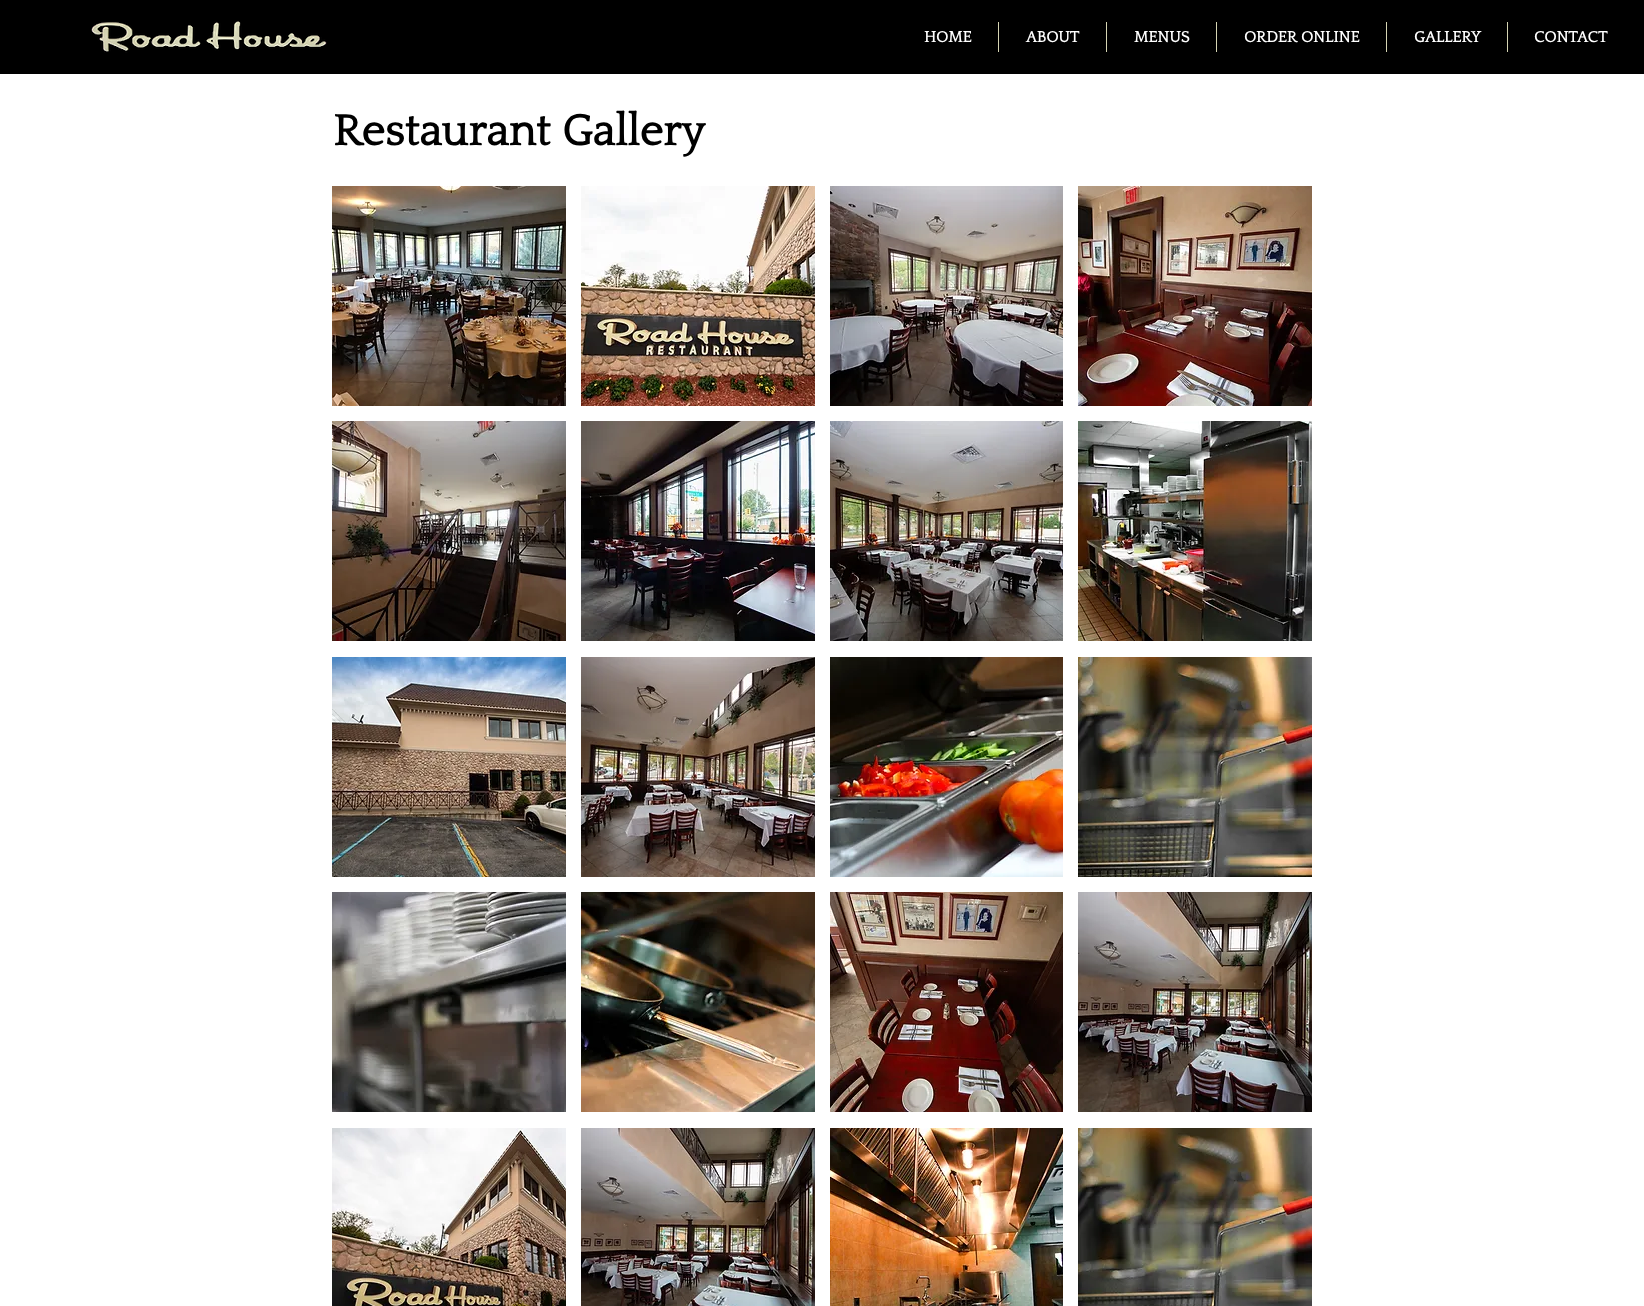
<svg xmlns="http://www.w3.org/2000/svg" width="1644" height="1306" viewBox="0 0 1644 1306">
  <rect width="100%" height="100%" fill="#000"/>
  <image x="91" y="21" width="236" height="32" href="img/1.png"/>
  <path d="M998 22h1v30H998z" fill="#d5d4b3"/>
  <path d="M1106 22h1v30H1106z" fill="#d5d4b3"/>
  <path d="M1216 22h1v30H1216z" fill="#d5d4b3"/>
  <path d="M1386 22h1v30H1386z" fill="#d5d4b3"/>
  <path d="M1507 22h1v30H1507z" fill="#d5d4b3"/>
  <path d="M0 74h1644v1232H0z" fill="#fff"/>
  <image x="332" y="186" width="234" height="220" href="img/2.png"/>
  <image x="581" y="186" width="234" height="220" href="img/3.png"/>
  <image x="830" y="186" width="233" height="220" href="img/4.png"/>
  <image x="1078" y="186" width="234" height="220" href="img/5.png"/>
  <image x="332" y="421" width="234" height="220" href="img/6.png"/>
  <image x="581" y="421" width="234" height="220" href="img/7.png"/>
  <image x="830" y="421" width="233" height="220" href="img/8.png"/>
  <image x="1078" y="421" width="234" height="220" href="img/9.png"/>
  <image x="332" y="657" width="234" height="220" href="img/10.png"/>
  <image x="581" y="657" width="234" height="220" href="img/11.png"/>
  <image x="830" y="657" width="233" height="220" href="img/12.png"/>
  <image x="1078" y="657" width="234" height="220" href="img/13.png"/>
  <image x="332" y="892" width="234" height="220" href="img/14.png"/>
  <image x="581" y="892" width="234" height="220" href="img/15.png"/>
  <image x="830" y="892" width="233" height="220" href="img/16.png"/>
  <image x="1078" y="892" width="234" height="220" href="img/17.png"/>
  <image x="332" y="1128" width="234" height="178" href="img/18.png"/>
  <image x="581" y="1128" width="234" height="178" href="img/19.png"/>
  <image x="830" y="1128" width="233" height="178" href="img/20.png"/>
  <image x="1078" y="1128" width="234" height="178" href="img/21.png"/>
  <g font-family="Quattrocento" font-size="16" font-weight="bold" fill="#fff">
    <text x="924" y="42">HOME</text>
    <text x="1026" y="42">ABOUT</text>
    <text x="1134" y="42">MENUS</text>
    <text x="1244" y="42">ORDER ONLINE</text>
    <text x="1414" y="42">GALLERY</text>
    <text x="1534" y="42">CONTACT</text>
  </g>
  <text x="333" y="145" font-family="Quattrocento" font-size="45" font-weight="bold" fill="#000">Restaurant Gallery</text>
</svg>
